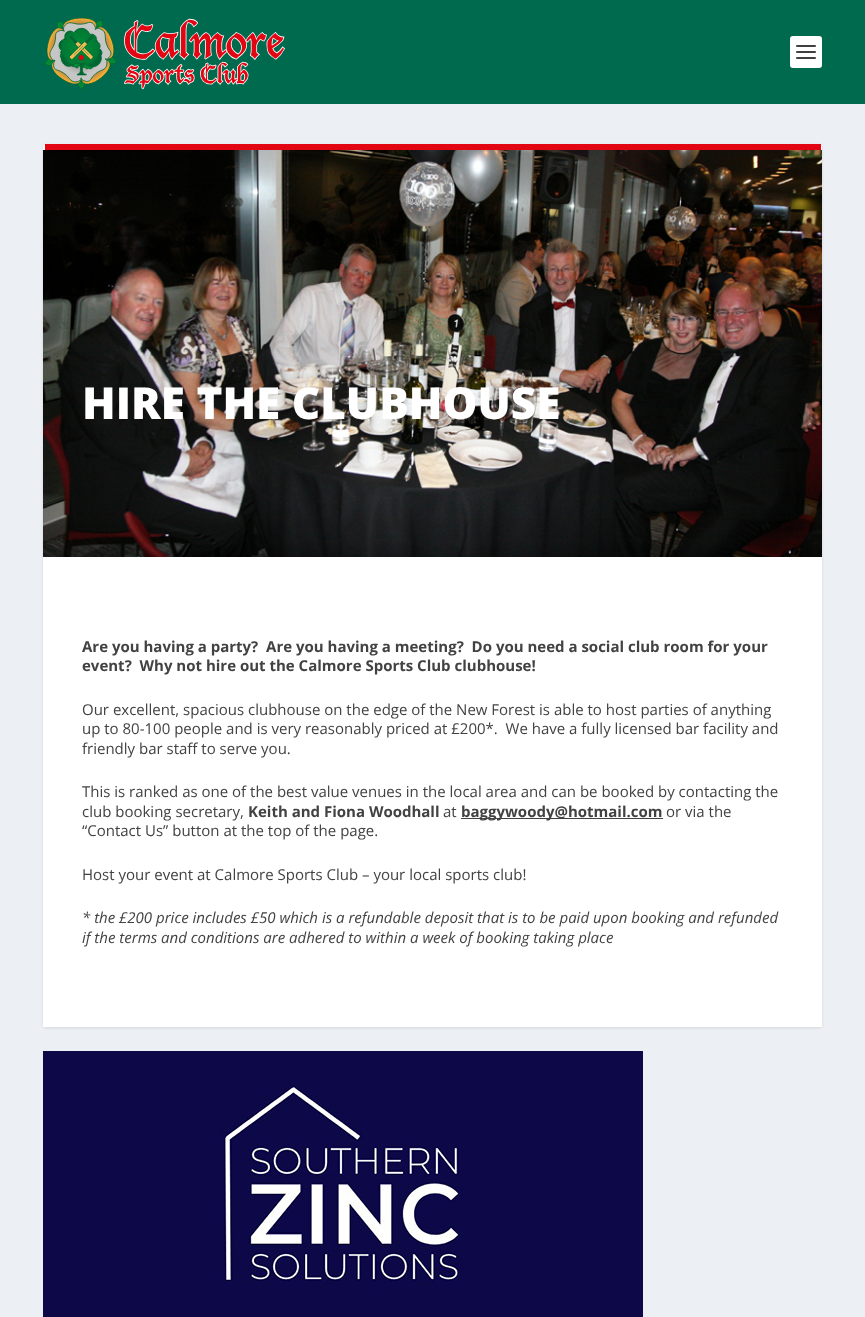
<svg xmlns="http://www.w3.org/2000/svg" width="865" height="1317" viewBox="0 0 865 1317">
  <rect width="100%" height="100%" fill="#ecf0f5"/>
  <path d="M0 0h865v104H0z" fill="#006a4e"/>
  <image x="44" y="17" width="241" height="73" href="img/1.png"/>
  <rect x="790" y="36" width="32" height="32" rx="3" fill="#fff"/>
  <rect x="796" y="45" width="20" height="2" rx="1" fill="#404040"/>
  <rect x="796" y="51" width="20" height="2" rx="1" fill="#404040"/>
  <rect x="796" y="57" width="20" height="2" rx="1" fill="#404040"/>
  <rect x="43" y="145" width="779" height="883" rx="3" fill="#0000001a" filter="blur(1.5px)"/>
  <rect x="43" y="144" width="779" height="883" rx="3" fill="#fff"/>
  <path d="M45 144h776v6H45z" fill="#e20613"/>
  <image x="43" y="150" width="779" height="407" href="img/2.png"/>
  <path d="M43 1024h779v3H43z" fill="#fff"/>
  <path d="M461 818h202v1H461z" fill="#424242"/>
  <image x="43" y="1051" width="600" height="266" href="img/3.png"/>
  <text x="82" y="419" font-family="Open Sans" font-size="44" font-weight="800" fill="#fff">HIRE THE CLUBHOUSE</text>
  <g font-family="Open Sans" font-size="15" font-weight="bold" fill="#424242">
    <text x="82" y="652" xml:space="preserve">Are you having a party?  Are you having a meeting?  Do you need a social club room for your</text>
    <text x="82" y="671" xml:space="preserve">event?  Why not hire out the Calmore Sports Club clubhouse!</text>
  </g>
  <g font-family="Open Sans" font-size="15" fill="#424242">
    <text x="82" y="715">Our excellent, spacious clubhouse on the edge of the New Forest is able to host parties of anything</text>
    <text x="82" y="734" xml:space="preserve">up to 80-100 people and is very reasonably priced at £200*.  We have a fully licensed bar facility and</text>
    <text x="82" y="754">friendly bar staff to serve you.</text>
    <text x="82" y="797">This is ranked as one of the best value venues in the local area and can be booked by contacting the</text>
    <text x="82" y="817">club booking secretary,</text>
  </g>
  <text x="248" y="817" font-family="Open Sans" font-size="15" font-weight="bold" fill="#424242">Keith and Fiona Woodhall</text>
  <text x="443" y="817" font-family="Open Sans" font-size="15" fill="#424242">at</text>
  <text x="461" y="817" font-family="Open Sans" font-size="15" font-weight="bold" fill="#424242">baggywoody@hotmail.com</text>
  <g font-family="Open Sans" font-size="15" fill="#424242">
    <text x="666" y="817">or via the</text>
    <text x="82" y="836">“Contact Us” button at the top of the page.</text>
    <text x="82" y="880">Host your event at Calmore Sports Club – your local sports club!</text>
  </g>
  <g font-family="Open Sans" font-size="15" font-style="italic" fill="#424242">
    <text x="82" y="923">* the £200 price includes £50 which is a refundable deposit that is to be paid upon booking and refunded</text>
    <text x="82" y="943">if the terms and conditions are adhered to within a week of booking taking place</text>
  </g>
</svg>
